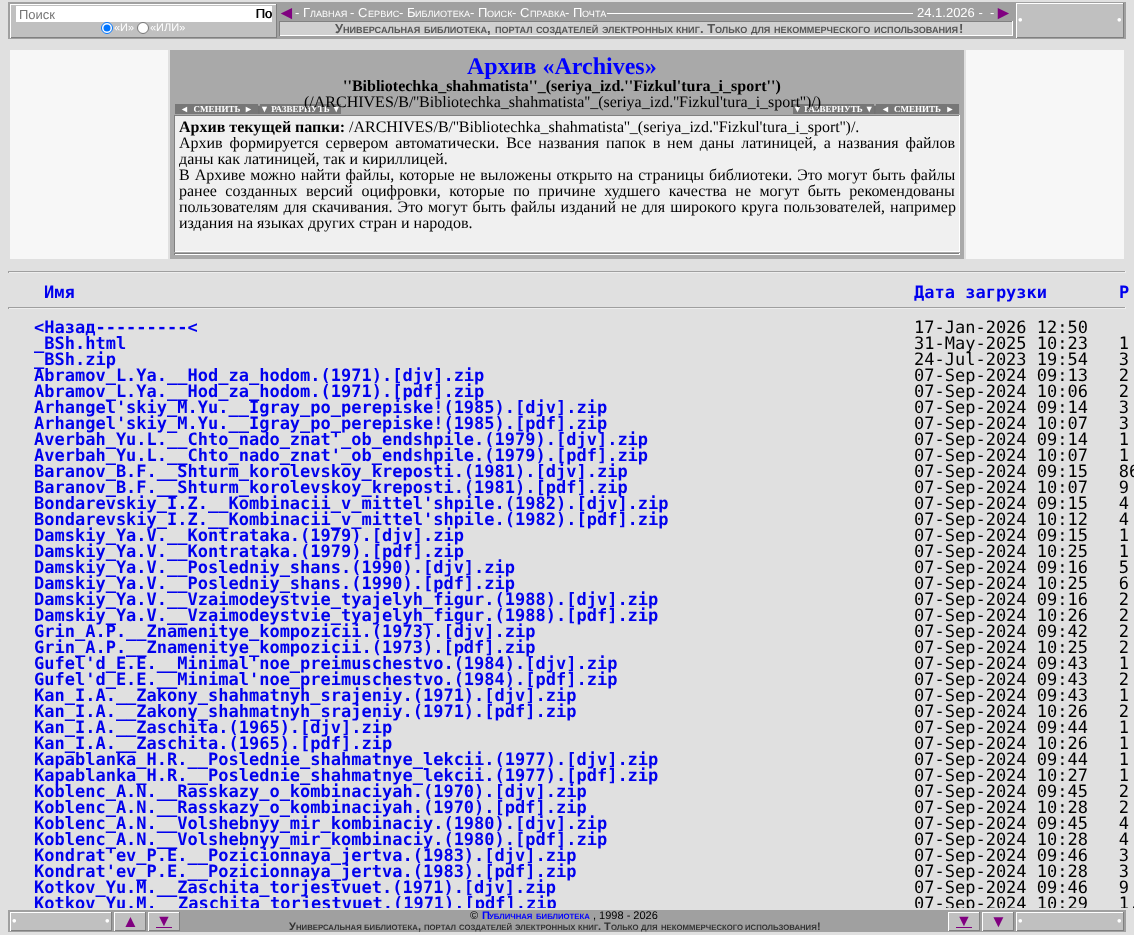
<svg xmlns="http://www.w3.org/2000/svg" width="1134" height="935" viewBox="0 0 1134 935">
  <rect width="100%" height="100%" fill="#e0e0e0"/>
  <path d="M8 2h1118v37H8z" fill="#a0a0a0"/>
  <path d="M11 5h265v32H11z" fill="#c0c0c0"/>
  <path d="M10 4h267v1H10z" fill="#fff"/>
  <path d="M276 4h1v34H276z" fill="#808080"/>
  <path d="M10 37h267v1H10z" fill="#808080"/>
  <path d="M10 4h1v34H10z" fill="#fff"/>
  <path d="M16 6h256v16H16z" fill="#fff"/>
  <image x="256" y="9" width="16" height="9" href="img/1.png"/>
  <circle cx="107" cy="28" r="5.5" fill="#fff" stroke="#0075ff"/>
  <circle cx="107" cy="28" r="3.5" fill="#0075ff"/>
  <circle cx="143" cy="28" r="5.5" fill="#fff" stroke="#767676"/>
  <path d="M606 13h307v1H606z" fill="#fff"/>
  <path d="M606 12h1v2H606z" fill="#a0a0a0"/>
  <path d="M280 22h732v13H280z" fill="#d0d0d0"/>
  <path d="M279 21h734v1H279z" fill="#808080"/>
  <path d="M1012 21h1v15H1012z" fill="#fff"/>
  <path d="M279 35h734v1H279z" fill="#fff"/>
  <path d="M279 21h1v15H279z" fill="#808080"/>
  <path d="M1017 4h106v33H1017z" fill="#c0c0c0"/>
  <path d="M1016 3h108v1H1016z" fill="#fff"/>
  <path d="M1123 3h1v35H1123z" fill="#808080"/>
  <path d="M1016 37h108v1H1016z" fill="#808080"/>
  <path d="M1016 3h1v35H1016z" fill="#fff"/>
  <path d="M10 50h158v209H10z" fill="#f7f7f7"/>
  <path d="M170 50h794v209H170z" fill="#a9a9a9"/>
  <path d="M175 104h83v10H175z" fill="#777"/>
  <path d="M260 104h81v10H260z" fill="#777"/>
  <path d="M793 104h81v10H793z" fill="#777"/>
  <path d="M876 104h83v10H876z" fill="#777"/>
  <path d="M175 116h784v135H175z" fill="#f0f0f0"/>
  <path d="M174 115h786v1H174z" fill="#808080"/>
  <path d="M959 115h1v137H959z" fill="#fff"/>
  <path d="M174 251h786v1H174z" fill="#fff"/>
  <path d="M174 115h1v137H174z" fill="#808080"/>
  <path d="M174 253h786v1H174z" fill="#808080"/>
  <path d="M959 253h1v2H959z" fill="#fff"/>
  <path d="M174 254h786v1H174z" fill="#fff"/>
  <path d="M174 253h1v2H174z" fill="#808080"/>
  <path d="M966 50h158v209H966z" fill="#f7f7f7"/>
  <path d="M8 271h1118v1H8z" fill="#9f9f9f"/>
  <path d="M1125 271h1v2H1125z" fill="#eee"/>
  <path d="M8 272h1118v1H8z" fill="#eee"/>
  <path d="M8 271h1v2H8z" fill="#9f9f9f"/>
  <path d="M8 307h1118v1H8z" fill="#9f9f9f"/>
  <path d="M1125 307h1v2H1125z" fill="#eee"/>
  <path d="M8 308h1118v1H8z" fill="#eee"/>
  <path d="M8 307h1v2H8z" fill="#9f9f9f"/>
  <text x="19" y="19" font-family="Liberation Sans" font-size="13" fill="#757575">Поиск</text>
  <text x="256" y="18" font-family="Liberation Sans" font-size="13" fill="#000">По</text>
  <g font-family="Liberation Sans" font-size="11" fill="#fff">
    <text x="114" y="31">«И»</text>
    <text x="150" y="31">«ИЛИ»</text>
  </g>
  <text x="277" y="19" font-family="Liberation Sans" font-size="19" fill="#800080">◄</text>
  <text x="295" y="17" font-family="Liberation Sans" font-size="13" fill="#fff">- Г</text>
  <text x="310" y="17" font-family="Liberation Sans" font-size="9.1" fill="#fff">ЛАВНАЯ</text>
  <text x="350" y="17" font-family="Liberation Sans" font-size="13" fill="#fff">- С</text>
  <text x="368" y="17" font-family="Liberation Sans" font-size="9.1" fill="#fff">ЕРВИС</text>
  <text x="399" y="17" font-family="Liberation Sans" font-size="13" fill="#fff">- Б</text>
  <text x="415" y="17" font-family="Liberation Sans" font-size="9.1" fill="#fff">ИБЛИОТЕКА</text>
  <path d="M470 16h1v3H470z" fill="#a0a0a0"/>
  <text x="470" y="17" font-family="Liberation Sans" font-size="13" fill="#fff">- П</text>
  <text x="487" y="17" font-family="Liberation Sans" font-size="9.1" fill="#fff">ОИСК</text>
  <path d="M512 16h1v3H512z" fill="#a0a0a0"/>
  <text x="512" y="17" font-family="Liberation Sans" font-size="13" fill="#fff">- С</text>
  <text x="530" y="17" font-family="Liberation Sans" font-size="9.1" fill="#fff">ПРАВКА</text>
  <text x="565" y="17" font-family="Liberation Sans" font-size="13" fill="#fff">- П</text>
  <text x="582" y="17" font-family="Liberation Sans" font-size="9.1" fill="#fff">ОЧТА</text>
  <g font-family="Liberation Sans" font-size="13" fill="#fff">
    <text x="917" y="17">24.1.2026 -</text>
    <text x="990" y="17">-</text>
  </g>
  <text x="994" y="19" font-family="Liberation Sans" font-size="19" fill="#800080">►</text>
  <text x="335" y="33" font-family="Liberation Sans" font-size="13" font-weight="bold" fill="#555">У</text>
  <g font-family="Liberation Sans" font-size="9.1" font-weight="bold" fill="#555">
    <text x="343" y="33">НИВЕРСАЛЬНАЯ</text>
    <text x="424" y="33">БИБЛИОТЕКА</text>
  </g>
  <text x="487" y="33" font-family="Liberation Sans" font-size="13" font-weight="bold" fill="#555">,</text>
  <g font-family="Liberation Sans" font-size="9.1" font-weight="bold" fill="#555">
    <text x="495" y="33">ПОРТАЛ</text>
    <text x="536" y="33">СОЗДАТЕЛЕЙ</text>
    <text x="602" y="33">ЭЛЕКТРОННЫХ</text>
    <text x="676" y="33">КНИГ</text>
  </g>
  <text x="700" y="33" font-family="Liberation Sans" font-size="13" font-weight="bold" fill="#555">. Т</text>
  <g font-family="Liberation Sans" font-size="9.1" font-weight="bold" fill="#555">
    <text x="715" y="33">ОЛЬКО</text>
    <text x="751" y="33">ДЛЯ</text>
    <text x="774" y="33">НЕКОММЕРЧЕСКОГО</text>
    <text x="874" y="33">ИСПОЛЬЗОВАНИЯ</text>
  </g>
  <text x="959" y="33" font-family="Liberation Sans" font-size="13" font-weight="bold" fill="#555">!</text>
  <g font-family="Liberation Sans" font-size="13" fill="#fff">
    <text x="1018" y="24">•</text>
    <text x="1117" y="24">•</text>
  </g>
  <text x="467" y="74" font-family="Liberation Serif" font-size="24" font-weight="bold" fill="#00f">Архив «Archives»</text>
  <text x="343" y="91" font-family="Liberation Serif" font-size="16" font-weight="bold" fill="#000">''Bibliotechka_shahmatista''_(seriya_izd.''Fizkul'tura_i_sport'')</text>
  <g font-family="Liberation Serif" font-size="9" font-weight="bold" fill="#fff">
    <text x="180" y="112" xml:space="preserve">◄  СМЕНИТЬ</text>
    <text x="244" y="112">►</text>
  </g>
  <text x="258" y="112" font-family="Liberation Serif" font-size="9" font-weight="bold" fill="#000">|</text>
  <g font-family="Liberation Serif" font-size="9" font-weight="bold" fill="#fff">
    <text x="260" y="112">▼ РАЗВЕРНУТЬ ▼</text>
    <text x="793" y="112">▼ РАЗВЕРНУТЬ ▼</text>
  </g>
  <text x="304" y="107" font-family="Liberation Serif" font-size="16" fill="#000">(/ARCHIVES/B/''Bibliotechka_shahmatista''_(seriya_izd.''Fizkul'tura_i_sport'')/)</text>
  <text x="874" y="112" font-family="Liberation Serif" font-size="9" font-weight="bold" fill="#000">|</text>
  <g font-family="Liberation Serif" font-size="9" font-weight="bold" fill="#fff">
    <text x="881" y="112">◄</text>
    <text x="894" y="112" xml:space="preserve">СМЕНИТЬ  ►</text>
  </g>
  <text x="179" y="132" font-family="Liberation Serif" font-size="16" font-weight="bold" fill="#000">Архив текущей папки:</text>
  <g font-family="Liberation Serif" font-size="16" fill="#000">
    <text x="349" y="132">/ARCHIVES/B/''Bibliotechka_shahmatista''_(seriya_izd.''Fizkul'tura_i_sport'')/.</text>
    <text x="179" y="148" word-spacing="2.9">Архив формируется сервером автоматически. Все названия папок в нем даны латиницей, а названия файлов</text>
    <text x="179" y="164">даны как латиницей, так и кириллицей.</text>
    <text x="179" y="180" word-spacing="1">В Архиве можно найти файлы, которые не выложены открыто на страницы библиотеки. Это могут быть файлы</text>
    <text x="179" y="196" word-spacing="4.5">ранее созданных версий оцифровки, которые по причине худшего качества не могут быть рекомендованы</text>
    <text x="179" y="212" word-spacing="1">пользователям для скачивания. Это могут быть файлы изданий не для широкого круга пользователей, например</text>
    <text x="179" y="228">издания на языках других стран и народов.</text>
  </g>
  <g font-family="DejaVu Sans Mono" font-size="17" font-weight="bold" fill="#00e">
    <text x="44" y="298">Имя</text>
    <text x="914" y="298">Дата загрузки</text>
    <text x="1119" y="298">Р</text>
    <text x="34" y="333">&lt;Назад---------&lt;</text>
  </g>
  <text x="914" y="333" font-family="DejaVu Sans Mono" font-size="17" fill="#000">17-Jan-2026 12:50</text>
  <text x="34" y="349" font-family="DejaVu Sans Mono" font-size="17" font-weight="bold" fill="#00e">_BSh.html</text>
  <text x="914" y="349" font-family="DejaVu Sans Mono" font-size="17" fill="#000" xml:space="preserve">31-May-2025 10:23   1</text>
  <text x="34" y="365" font-family="DejaVu Sans Mono" font-size="17" font-weight="bold" fill="#00e">_BSh.zip</text>
  <text x="914" y="365" font-family="DejaVu Sans Mono" font-size="17" fill="#000" xml:space="preserve">24-Jul-2023 19:54   3</text>
  <text x="34" y="381" font-family="DejaVu Sans Mono" font-size="17" font-weight="bold" fill="#00e">Abramov_L.Ya.__Hod_za_hodom.(1971).[djv].zip</text>
  <text x="914" y="381" font-family="DejaVu Sans Mono" font-size="17" fill="#000" xml:space="preserve">07-Sep-2024 09:13   2</text>
  <text x="34" y="397" font-family="DejaVu Sans Mono" font-size="17" font-weight="bold" fill="#00e">Abramov_L.Ya.__Hod_za_hodom.(1971).[pdf].zip</text>
  <text x="914" y="397" font-family="DejaVu Sans Mono" font-size="17" fill="#000" xml:space="preserve">07-Sep-2024 10:06   2</text>
  <text x="34" y="413" font-family="DejaVu Sans Mono" font-size="17" font-weight="bold" fill="#00e">Arhangel'skiy_M.Yu.__Igray_po_perepiske!(1985).[djv].zip</text>
  <text x="914" y="413" font-family="DejaVu Sans Mono" font-size="17" fill="#000" xml:space="preserve">07-Sep-2024 09:14   3</text>
  <text x="34" y="429" font-family="DejaVu Sans Mono" font-size="17" font-weight="bold" fill="#00e">Arhangel'skiy_M.Yu.__Igray_po_perepiske!(1985).[pdf].zip</text>
  <text x="914" y="429" font-family="DejaVu Sans Mono" font-size="17" fill="#000" xml:space="preserve">07-Sep-2024 10:07   3</text>
  <text x="34" y="445" font-family="DejaVu Sans Mono" font-size="17" font-weight="bold" fill="#00e">Averbah_Yu.L.__Chto_nado_znat'_ob_endshpile.(1979).[djv].zip</text>
  <text x="914" y="445" font-family="DejaVu Sans Mono" font-size="17" fill="#000" xml:space="preserve">07-Sep-2024 09:14   1</text>
  <text x="34" y="461" font-family="DejaVu Sans Mono" font-size="17" font-weight="bold" fill="#00e">Averbah_Yu.L.__Chto_nado_znat'_ob_endshpile.(1979).[pdf].zip</text>
  <text x="914" y="461" font-family="DejaVu Sans Mono" font-size="17" fill="#000" xml:space="preserve">07-Sep-2024 10:07   1</text>
  <text x="34" y="477" font-family="DejaVu Sans Mono" font-size="17" font-weight="bold" fill="#00e">Baranov_B.F.__Shturm_korolevskoy_kreposti.(1981).[djv].zip</text>
  <text x="914" y="477" font-family="DejaVu Sans Mono" font-size="17" fill="#000" xml:space="preserve">07-Sep-2024 09:15   86</text>
  <text x="34" y="493" font-family="DejaVu Sans Mono" font-size="17" font-weight="bold" fill="#00e">Baranov_B.F.__Shturm_korolevskoy_kreposti.(1981).[pdf].zip</text>
  <text x="914" y="493" font-family="DejaVu Sans Mono" font-size="17" fill="#000" xml:space="preserve">07-Sep-2024 10:07   9</text>
  <text x="34" y="509" font-family="DejaVu Sans Mono" font-size="17" font-weight="bold" fill="#00e">Bondarevskiy_I.Z.__Kombinacii_v_mittel'shpile.(1982).[djv].zip</text>
  <text x="914" y="509" font-family="DejaVu Sans Mono" font-size="17" fill="#000" xml:space="preserve">07-Sep-2024 09:15   4</text>
  <text x="34" y="525" font-family="DejaVu Sans Mono" font-size="17" font-weight="bold" fill="#00e">Bondarevskiy_I.Z.__Kombinacii_v_mittel'shpile.(1982).[pdf].zip</text>
  <text x="914" y="525" font-family="DejaVu Sans Mono" font-size="17" fill="#000" xml:space="preserve">07-Sep-2024 10:12   4</text>
  <text x="34" y="541" font-family="DejaVu Sans Mono" font-size="17" font-weight="bold" fill="#00e">Damskiy_Ya.V.__Kontrataka.(1979).[djv].zip</text>
  <text x="914" y="541" font-family="DejaVu Sans Mono" font-size="17" fill="#000" xml:space="preserve">07-Sep-2024 09:15   1</text>
  <text x="34" y="557" font-family="DejaVu Sans Mono" font-size="17" font-weight="bold" fill="#00e">Damskiy_Ya.V.__Kontrataka.(1979).[pdf].zip</text>
  <text x="914" y="557" font-family="DejaVu Sans Mono" font-size="17" fill="#000" xml:space="preserve">07-Sep-2024 10:25   1</text>
  <text x="34" y="573" font-family="DejaVu Sans Mono" font-size="17" font-weight="bold" fill="#00e">Damskiy_Ya.V.__Posledniy_shans.(1990).[djv].zip</text>
  <text x="914" y="573" font-family="DejaVu Sans Mono" font-size="17" fill="#000" xml:space="preserve">07-Sep-2024 09:16   5</text>
  <text x="34" y="589" font-family="DejaVu Sans Mono" font-size="17" font-weight="bold" fill="#00e">Damskiy_Ya.V.__Posledniy_shans.(1990).[pdf].zip</text>
  <text x="914" y="589" font-family="DejaVu Sans Mono" font-size="17" fill="#000" xml:space="preserve">07-Sep-2024 10:25   6</text>
  <text x="34" y="605" font-family="DejaVu Sans Mono" font-size="17" font-weight="bold" fill="#00e">Damskiy_Ya.V.__Vzaimodeystvie_tyajelyh_figur.(1988).[djv].zip</text>
  <text x="914" y="605" font-family="DejaVu Sans Mono" font-size="17" fill="#000" xml:space="preserve">07-Sep-2024 09:16   2</text>
  <text x="34" y="621" font-family="DejaVu Sans Mono" font-size="17" font-weight="bold" fill="#00e">Damskiy_Ya.V.__Vzaimodeystvie_tyajelyh_figur.(1988).[pdf].zip</text>
  <text x="914" y="621" font-family="DejaVu Sans Mono" font-size="17" fill="#000" xml:space="preserve">07-Sep-2024 10:26   2</text>
  <text x="34" y="637" font-family="DejaVu Sans Mono" font-size="17" font-weight="bold" fill="#00e">Grin_A.P.__Znamenitye_kompozicii.(1973).[djv].zip</text>
  <text x="914" y="637" font-family="DejaVu Sans Mono" font-size="17" fill="#000" xml:space="preserve">07-Sep-2024 09:42   2</text>
  <text x="34" y="653" font-family="DejaVu Sans Mono" font-size="17" font-weight="bold" fill="#00e">Grin_A.P.__Znamenitye_kompozicii.(1973).[pdf].zip</text>
  <text x="914" y="653" font-family="DejaVu Sans Mono" font-size="17" fill="#000" xml:space="preserve">07-Sep-2024 10:25   2</text>
  <text x="34" y="669" font-family="DejaVu Sans Mono" font-size="17" font-weight="bold" fill="#00e">Gufel'd_E.E.__Minimal'noe_preimuschestvo.(1984).[djv].zip</text>
  <text x="914" y="669" font-family="DejaVu Sans Mono" font-size="17" fill="#000" xml:space="preserve">07-Sep-2024 09:43   1</text>
  <text x="34" y="685" font-family="DejaVu Sans Mono" font-size="17" font-weight="bold" fill="#00e">Gufel'd_E.E.__Minimal'noe_preimuschestvo.(1984).[pdf].zip</text>
  <text x="914" y="685" font-family="DejaVu Sans Mono" font-size="17" fill="#000" xml:space="preserve">07-Sep-2024 09:43   2</text>
  <text x="34" y="701" font-family="DejaVu Sans Mono" font-size="17" font-weight="bold" fill="#00e">Kan_I.A.__Zakony_shahmatnyh_srajeniy.(1971).[djv].zip</text>
  <text x="914" y="701" font-family="DejaVu Sans Mono" font-size="17" fill="#000" xml:space="preserve">07-Sep-2024 09:43   1</text>
  <text x="34" y="717" font-family="DejaVu Sans Mono" font-size="17" font-weight="bold" fill="#00e">Kan_I.A.__Zakony_shahmatnyh_srajeniy.(1971).[pdf].zip</text>
  <text x="914" y="717" font-family="DejaVu Sans Mono" font-size="17" fill="#000" xml:space="preserve">07-Sep-2024 10:26   2</text>
  <text x="34" y="733" font-family="DejaVu Sans Mono" font-size="17" font-weight="bold" fill="#00e">Kan_I.A.__Zaschita.(1965).[djv].zip</text>
  <text x="914" y="733" font-family="DejaVu Sans Mono" font-size="17" fill="#000" xml:space="preserve">07-Sep-2024 09:44   1</text>
  <text x="34" y="749" font-family="DejaVu Sans Mono" font-size="17" font-weight="bold" fill="#00e">Kan_I.A.__Zaschita.(1965).[pdf].zip</text>
  <text x="914" y="749" font-family="DejaVu Sans Mono" font-size="17" fill="#000" xml:space="preserve">07-Sep-2024 10:26   1</text>
  <text x="34" y="765" font-family="DejaVu Sans Mono" font-size="17" font-weight="bold" fill="#00e">Kapablanka_H.R.__Poslednie_shahmatnye_lekcii.(1977).[djv].zip</text>
  <text x="914" y="765" font-family="DejaVu Sans Mono" font-size="17" fill="#000" xml:space="preserve">07-Sep-2024 09:44   1</text>
  <text x="34" y="781" font-family="DejaVu Sans Mono" font-size="17" font-weight="bold" fill="#00e">Kapablanka_H.R.__Poslednie_shahmatnye_lekcii.(1977).[pdf].zip</text>
  <text x="914" y="781" font-family="DejaVu Sans Mono" font-size="17" fill="#000" xml:space="preserve">07-Sep-2024 10:27   1</text>
  <text x="34" y="797" font-family="DejaVu Sans Mono" font-size="17" font-weight="bold" fill="#00e">Koblenc_A.N.__Rasskazy_o_kombinaciyah.(1970).[djv].zip</text>
  <text x="914" y="797" font-family="DejaVu Sans Mono" font-size="17" fill="#000" xml:space="preserve">07-Sep-2024 09:45   2</text>
  <text x="34" y="813" font-family="DejaVu Sans Mono" font-size="17" font-weight="bold" fill="#00e">Koblenc_A.N.__Rasskazy_o_kombinaciyah.(1970).[pdf].zip</text>
  <text x="914" y="813" font-family="DejaVu Sans Mono" font-size="17" fill="#000" xml:space="preserve">07-Sep-2024 10:28   2</text>
  <text x="34" y="829" font-family="DejaVu Sans Mono" font-size="17" font-weight="bold" fill="#00e">Koblenc_A.N.__Volshebnyy_mir_kombinaciy.(1980).[djv].zip</text>
  <text x="914" y="829" font-family="DejaVu Sans Mono" font-size="17" fill="#000" xml:space="preserve">07-Sep-2024 09:45   4</text>
  <text x="34" y="845" font-family="DejaVu Sans Mono" font-size="17" font-weight="bold" fill="#00e">Koblenc_A.N.__Volshebnyy_mir_kombinaciy.(1980).[pdf].zip</text>
  <text x="914" y="845" font-family="DejaVu Sans Mono" font-size="17" fill="#000" xml:space="preserve">07-Sep-2024 10:28   4</text>
  <text x="34" y="861" font-family="DejaVu Sans Mono" font-size="17" font-weight="bold" fill="#00e">Kondrat'ev_P.E.__Pozicionnaya_jertva.(1983).[djv].zip</text>
  <text x="914" y="861" font-family="DejaVu Sans Mono" font-size="17" fill="#000" xml:space="preserve">07-Sep-2024 09:46   3</text>
  <text x="34" y="877" font-family="DejaVu Sans Mono" font-size="17" font-weight="bold" fill="#00e">Kondrat'ev_P.E.__Pozicionnaya_jertva.(1983).[pdf].zip</text>
  <text x="914" y="877" font-family="DejaVu Sans Mono" font-size="17" fill="#000" xml:space="preserve">07-Sep-2024 10:28   3</text>
  <text x="34" y="893" font-family="DejaVu Sans Mono" font-size="17" font-weight="bold" fill="#00e">Kotkov_Yu.M.__Zaschita_torjestvuet.(1971).[djv].zip</text>
  <text x="914" y="893" font-family="DejaVu Sans Mono" font-size="17" fill="#000" xml:space="preserve">07-Sep-2024 09:46   9</text>
  <g font-family="DejaVu Sans Mono" font-size="17" font-weight="bold" fill="#00e">
    <text x="34" y="909">Kotkov_Yu.M.</text>
    <text x="178" y="909">Zaschita_torjestvuet.(1971).[pdf].zip</text>
  </g>
  <text x="914" y="909" font-family="DejaVu Sans Mono" font-size="17" fill="#000" xml:space="preserve">07-Sep-2024 10:29   1.</text>
  <path d="M35 908h1099v5H35z" fill="#e0e0e0"/>
  <path d="M8 910h1118v22H8z" fill="#a0a0a0"/>
  <path d="M11 913h100v17H11z" fill="#c0c0c0"/>
  <g font-family="Liberation Sans" font-size="13" fill="#fff">
    <text x="105" y="925">•</text>
    <text x="12" y="925">•</text>
  </g>
  <path d="M10 912h102v1H10z" fill="#fff"/>
  <path d="M111 912h1v19H111z" fill="#808080"/>
  <path d="M10 930h102v1H10z" fill="#808080"/>
  <path d="M10 912h1v19H10z" fill="#fff"/>
  <path d="M115 913h30v17H115z" fill="#c0c0c0"/>
  <path d="M114 912h32v1H114z" fill="#fff"/>
  <path d="M145 912h1v19H145z" fill="#808080"/>
  <path d="M114 930h32v1H114z" fill="#808080"/>
  <path d="M114 912h1v19H114z" fill="#fff"/>
  <text x="122" y="927" font-family="Liberation Sans" font-size="17" fill="#800080">▲</text>
  <path d="M149 913h30v17H149z" fill="#c0c0c0"/>
  <path d="M148 912h32v1H148z" fill="#fff"/>
  <path d="M179 912h1v19H179z" fill="#808080"/>
  <path d="M148 930h32v1H148z" fill="#808080"/>
  <path d="M148 912h1v19H148z" fill="#fff"/>
  <text x="156" y="926" font-family="Liberation Sans" font-size="16" fill="#800080">▼</text>
  <path d="M156 927h16v1H156z" fill="#800080"/>
  <text x="470" y="919" font-family="Liberation Sans" font-size="11" fill="#000">©</text>
  <text x="482" y="919" font-family="Liberation Sans" font-size="11" font-weight="bold" fill="#00f">П</text>
  <g font-family="Liberation Sans" font-size="7.75" font-weight="bold" fill="#00f">
    <text x="489" y="919">УБЛИЧНАЯ</text>
    <text x="536" y="919">БИБЛИОТЕКА</text>
  </g>
  <text x="593" y="919" font-family="Liberation Sans" font-size="11" fill="#000">, 1998 - 2026</text>
  <path d="M949 913h30v17H949z" fill="#c0c0c0"/>
  <path d="M948 912h32v1H948z" fill="#fff"/>
  <path d="M979 912h1v19H979z" fill="#808080"/>
  <path d="M948 930h32v1H948z" fill="#808080"/>
  <path d="M948 912h1v19H948z" fill="#fff"/>
  <text x="956" y="926" font-family="Liberation Sans" font-size="16" fill="#800080">▼</text>
  <path d="M956 927h16v1H956z" fill="#800080"/>
  <path d="M983 913h30v17H983z" fill="#c0c0c0"/>
  <path d="M982 912h32v1H982z" fill="#fff"/>
  <path d="M1013 912h1v19H1013z" fill="#808080"/>
  <path d="M982 930h32v1H982z" fill="#808080"/>
  <path d="M982 912h1v19H982z" fill="#fff"/>
  <text x="990" y="927" font-family="Liberation Sans" font-size="17" fill="#800080">▼</text>
  <text x="289" y="930" font-family="Liberation Sans" font-size="11" font-weight="bold" fill="#333">У</text>
  <g font-family="Liberation Sans" font-size="7.75" font-weight="bold" fill="#333">
    <text x="296" y="930">НИВЕРСАЛЬНАЯ</text>
    <text x="364" y="930">БИБЛИОТЕКА</text>
  </g>
  <text x="418" y="930" font-family="Liberation Sans" font-size="11" font-weight="bold" fill="#333">,</text>
  <g font-family="Liberation Sans" font-size="7.75" font-weight="bold" fill="#333">
    <text x="424" y="930">ПОРТАЛ</text>
    <text x="459" y="930">СОЗДАТЕЛЕЙ</text>
    <text x="515" y="930">ЭЛЕКТРОННЫХ</text>
    <text x="578" y="930">КНИГ</text>
  </g>
  <text x="598" y="930" font-family="Liberation Sans" font-size="11" font-weight="bold" fill="#333">. Т</text>
  <g font-family="Liberation Sans" font-size="7.75" font-weight="bold" fill="#333">
    <text x="611" y="930">ОЛЬКО</text>
    <text x="641" y="930">ДЛЯ</text>
    <text x="661" y="930">НЕКОММЕРЧЕСКОГО</text>
    <text x="745" y="930">ИСПОЛЬЗОВАНИЯ</text>
  </g>
  <text x="817" y="930" font-family="Liberation Sans" font-size="11" font-weight="bold" fill="#333">!</text>
  <path d="M1017 913h106v17H1017z" fill="#c0c0c0"/>
  <path d="M1016 912h108v1H1016z" fill="#fff"/>
  <path d="M1123 912h1v19H1123z" fill="#808080"/>
  <path d="M1016 930h108v1H1016z" fill="#808080"/>
  <path d="M1016 912h1v19H1016z" fill="#fff"/>
  <g font-family="Liberation Sans" font-size="13" fill="#fff">
    <text x="1018" y="925">•</text>
    <text x="1117" y="925">•</text>
  </g>
</svg>
